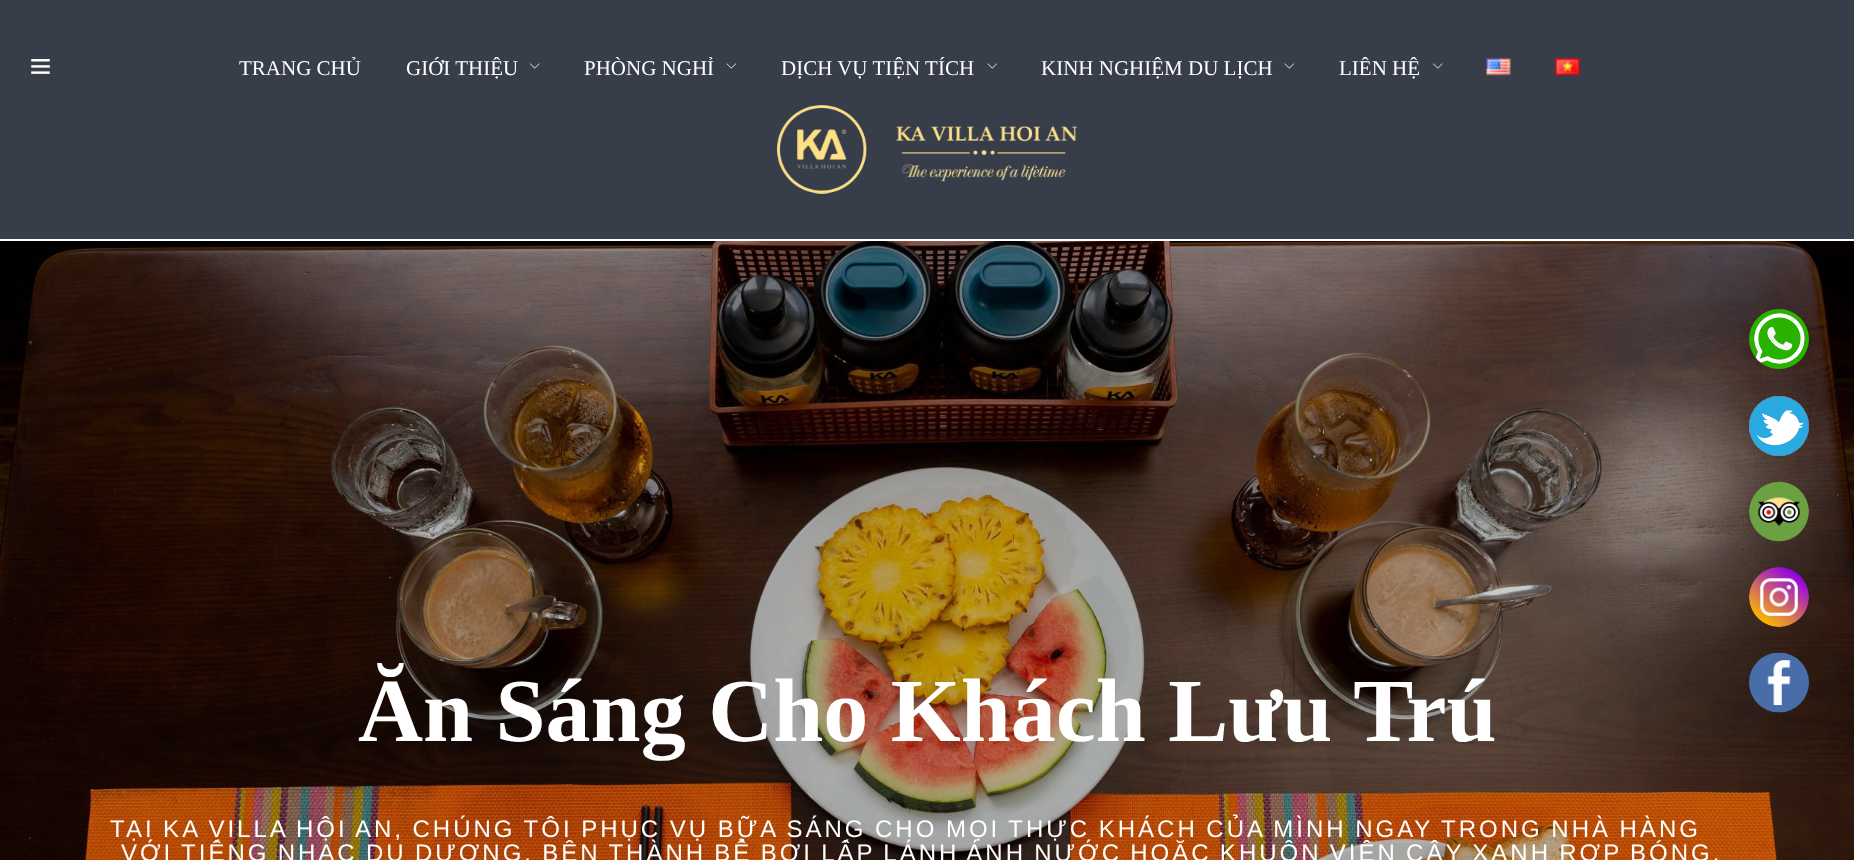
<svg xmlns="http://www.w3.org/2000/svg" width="1854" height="860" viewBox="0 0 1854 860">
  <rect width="100%" height="100%" fill="#fff"/>
  <path d="M0 0h1854v239H0z" fill="#373d49"/>
  <image x="31" y="59" width="19" height="15" href="img/1.png"/>
  <image x="530" y="63" width="10" height="6" href="img/2.png"/>
  <image x="726" y="63" width="10" height="6" href="img/3.png"/>
  <image x="987" y="63" width="10" height="6" href="img/3.png"/>
  <image x="1284" y="63" width="10" height="6" href="img/3.png"/>
  <image x="1433" y="63" width="10" height="6" href="img/2.png"/>
  <image x="1486" y="58" width="25" height="18" href="img/4.png"/>
  <image x="1555" y="58" width="25" height="18" href="img/5.png"/>
  <image x="777" y="105" width="300" height="89" href="img/6.png"/>
  <image x="0" y="241" width="1854" height="619" href="img/7.png"/>
  <image x="1749" y="309" width="60" height="60" href="img/8.png"/>
  <image x="1749" y="396" width="60" height="60" href="img/9.png"/>
  <image x="1749" y="481" width="60" height="61" href="img/10.png"/>
  <image x="1749" y="567" width="60" height="60" href="img/11.png"/>
  <image x="1749" y="652" width="60" height="61" href="img/12.png"/>
  <g font-family="Liberation Serif" font-size="21" fill="#fff">
    <text x="239" y="75">TRANG CHỦ</text>
    <text x="406" y="75">GIỚI THIỆU</text>
    <text x="584" y="75">PHÒNG NGHỈ</text>
    <text x="781" y="75">DỊCH VỤ TIỆN TÍCH</text>
    <text x="1041" y="75">KINH NGHIỆM DU LỊCH</text>
    <text x="1339" y="75">LIÊN HỆ</text>
  </g>
  <text x="358" y="741" font-family="Liberation Serif" font-size="90" font-weight="bold" fill="#fff">Ăn Sáng Cho Khách Lưu Trú</text>
  <g font-family="Liberation Sans" font-size="24" letter-spacing="3" fill="#fff">
    <text x="110" y="837" word-spacing="-1.1">TẠI KA VILLA HỘI AN, CHÚNG TÔI PHỤC VỤ BỮA SÁNG CHO MỌI THỰC KHÁCH CỦA MÌNH NGAY TRONG NHÀ HÀNG</text>
    <text x="121" y="861" word-spacing="-1.4">VỚI TIẾNG NHẠC DU DƯƠNG, BÊN THÀNH BỂ BƠI LẤP LÁNH ÁNH NƯỚC HOẶC KHUÔN VIÊN CÂY XANH RỢP BÓNG.</text>
  </g>
</svg>
